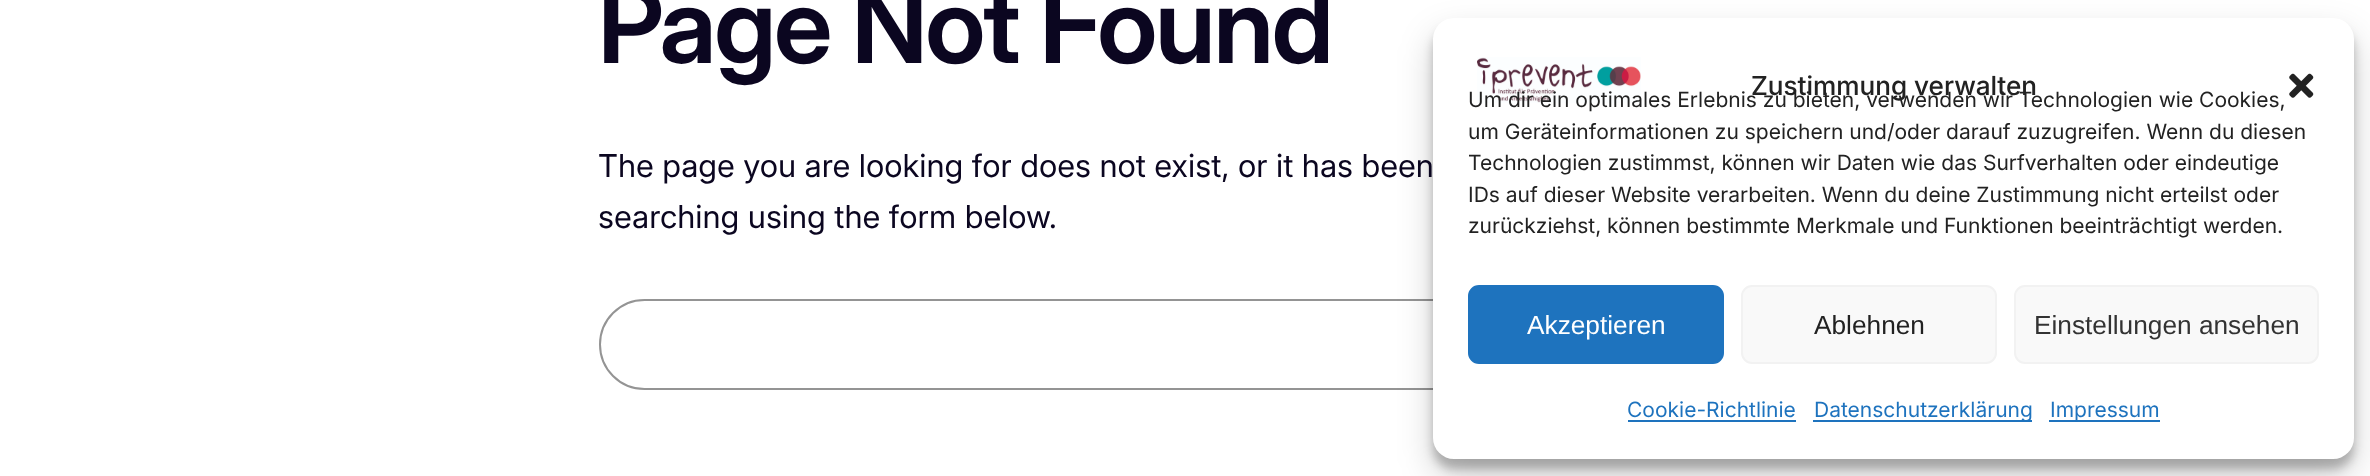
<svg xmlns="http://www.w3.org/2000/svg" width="2370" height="476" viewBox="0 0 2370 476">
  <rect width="100%" height="100%" fill="#fff"/>
  <rect x="600" y="300" width="1023" height="89" rx="44.5" fill="none" stroke="#949494" stroke-width="2"/>
  <rect x="1433" y="28" width="921" height="441" rx="21" fill="#0000003b" filter="blur(5px)"/>
  <rect x="1433" y="35" width="921" height="441" rx="21" fill="#00000030" filter="blur(17.5px)"/>
  <rect x="1433" y="18" width="921" height="441" rx="21" fill="#fff"/>
  <image x="1477" y="57" width="164" height="46" href="img/1.png"/>
  <image x="2289" y="73" width="25" height="25" href="img/2.png"/>
  <rect x="1469" y="286" width="254" height="77" rx="10" fill="#1e73be" stroke="#1e73be" stroke-width="2"/>
  <rect x="1742" y="286" width="254" height="77" rx="10" fill="#f9f9f9" stroke="#f2f2f2" stroke-width="2"/>
  <rect x="2015" y="286" width="303" height="77" rx="10" fill="#f9f9f9" stroke="#f2f2f2" stroke-width="2"/>
  <path d="M1628 420h168v2H1628z" fill="#1e73be"/>
  <path d="M1813 420h219v2H1813z" fill="#1e73be"/>
  <path d="M2049 420h111v2H2049z" fill="#1e73be"/>
  <text x="598" y="63" font-family="Inter" font-size="105" font-weight="600" letter-spacing="-2.1" fill="#0b0620">Page Not Found</text>
  <g font-family="Inter" font-size="31.5" fill="#0b0620">
    <text x="598" y="177">The page you are looking for does not exist, or it has been</text>
    <text x="598" y="228">searching using the form below.</text>
  </g>
  <text x="1751" y="95" font-family="Inter" font-size="26.25" font-weight="500" fill="#222">Zustimmung verwalten</text>
  <g font-family="'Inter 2'" font-size="21" fill="#222">
    <text x="1468" y="107">Um dir ein optimales Erlebnis zu bieten, verwenden wir Technologien wie Cookies,</text>
    <text x="1468" y="139">um Geräteinformationen zu speichern und/oder darauf zuzugreifen. Wenn du diesen</text>
    <text x="1468" y="170">Technologien zustimmst, können wir Daten wie das Surfverhalten oder eindeutige</text>
    <text x="1468" y="202">IDs auf dieser Website verarbeiten. Wenn du deine Zustimmung nicht erteilst oder</text>
    <text x="1468" y="233">zurückziehst, können bestimmte Merkmale und Funktionen beeinträchtigt werden.</text>
  </g>
  <text x="1527" y="334" font-family="Liberation Sans" font-size="26.25" fill="#fff">Akzeptieren</text>
  <text x="1814" y="334" font-family="Liberation Sans" font-size="26.25" fill="#222">Ablehnen</text>
  <text x="2034" y="334" font-family="Liberation Sans" font-size="26.25" fill="#333">Einstellungen ansehen</text>
  <g font-family="'Inter 2'" font-size="21" fill="#1e73be">
    <text x="1627" y="417">Cookie-Richtlinie</text>
    <text x="1814" y="417">Datenschutzerklärung</text>
    <text x="2050" y="417">Impressum</text>
  </g>
</svg>
